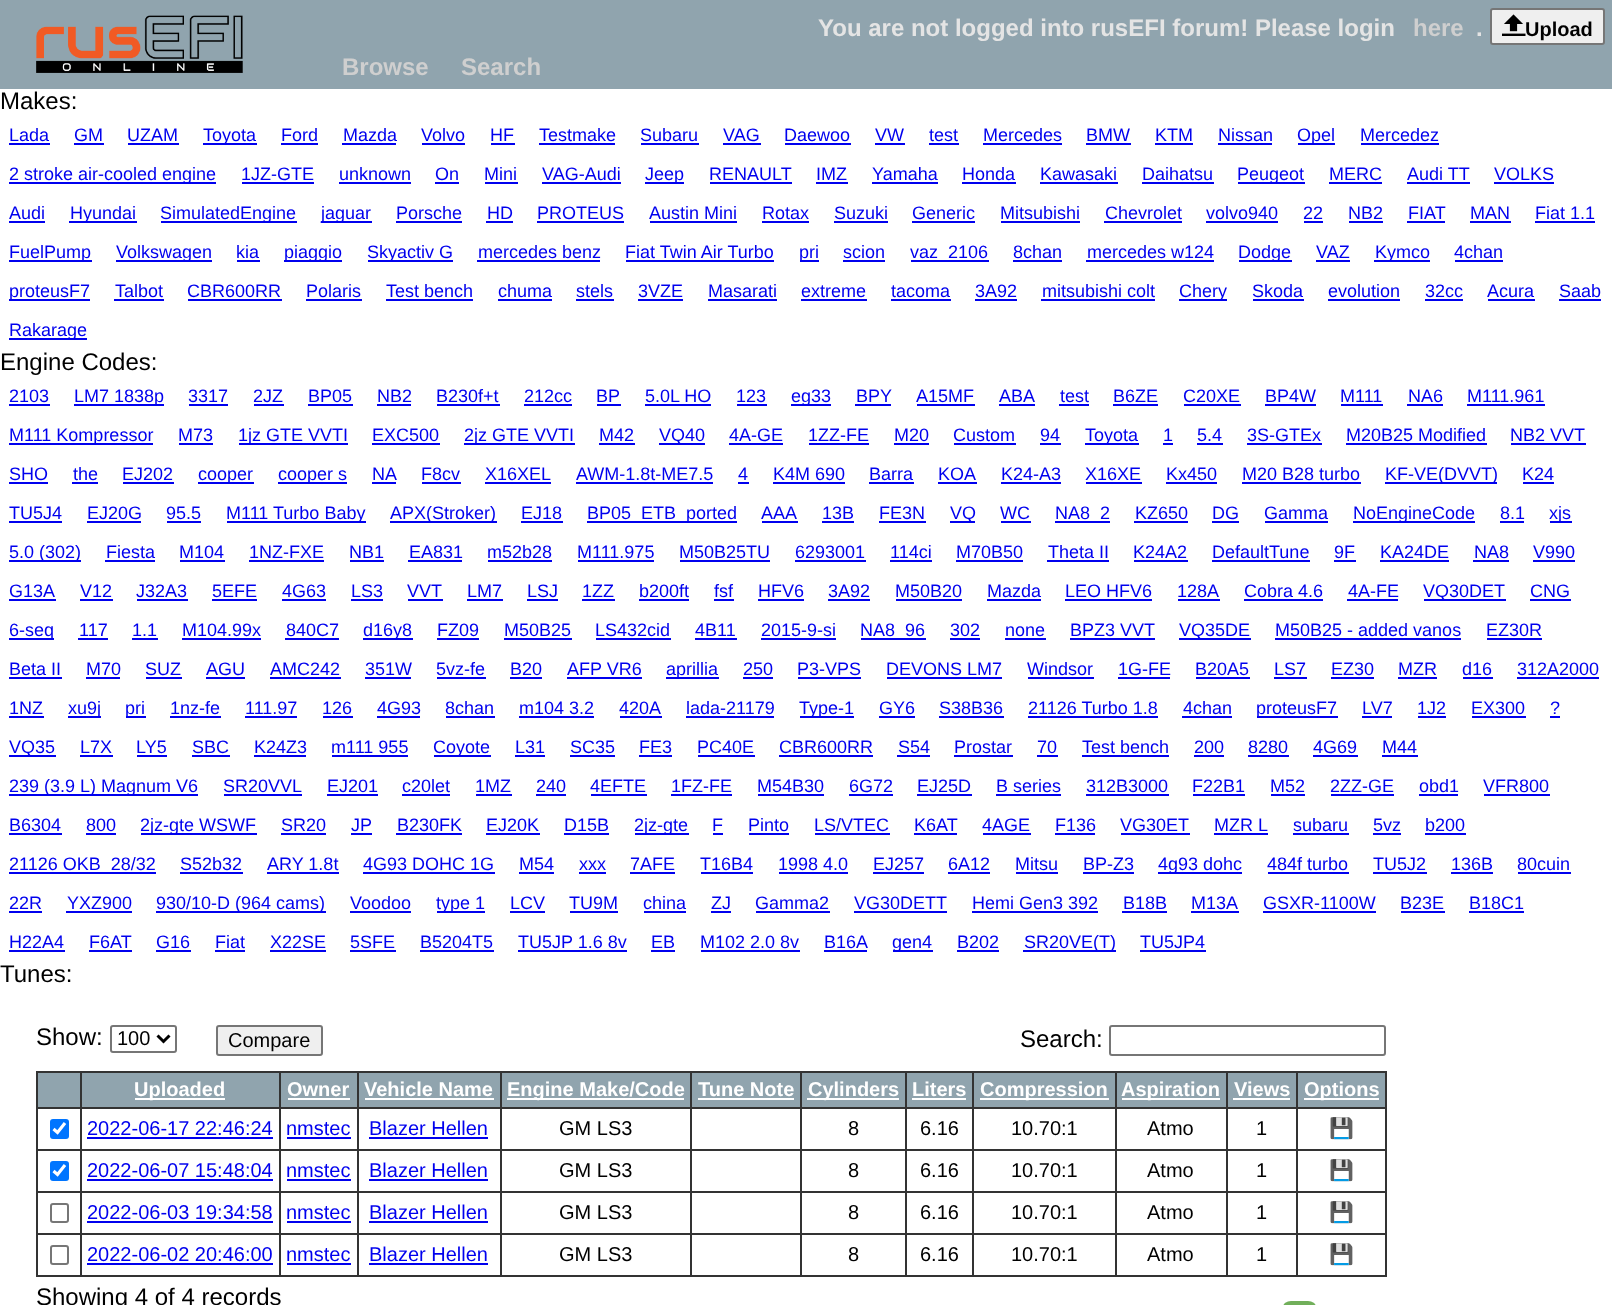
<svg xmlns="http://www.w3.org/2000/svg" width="1612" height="1305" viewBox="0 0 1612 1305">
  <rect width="100%" height="100%" fill="#fff"/>
  <path d="M0 0h1612v89H0z" fill="#90a4ae"/>
  <image x="36" y="15" width="207" height="58" href="img/1.png"/>
  <rect x="1491" y="9" width="113" height="35" rx="2" fill="#efefef" stroke="#767676" stroke-width="2"/>
  <image x="1502" y="14" width="24" height="22" href="img/2.png"/>
  <path d="M9 143h41v2H9z" fill="#00e"/>
  <path d="M74 143h30v2H74z" fill="#00e"/>
  <path d="M128 143h51v2H128z" fill="#00e"/>
  <path d="M203 143h54v2H203z" fill="#00e"/>
  <path d="M281 143h37v2H281z" fill="#00e"/>
  <path d="M342 143h54v2H342z" fill="#00e"/>
  <path d="M422 143h43v2H422z" fill="#00e"/>
  <path d="M491 143h24v2H491z" fill="#00e"/>
  <path d="M539 143h76v2H539z" fill="#00e"/>
  <path d="M641 143h58v2H641z" fill="#00e"/>
  <path d="M723 143h38v2H723z" fill="#00e"/>
  <path d="M785 143h66v2H785z" fill="#00e"/>
  <path d="M875 143h30v2H875z" fill="#00e"/>
  <path d="M929 143h30v2H929z" fill="#00e"/>
  <path d="M983 143h79v2H983z" fill="#00e"/>
  <path d="M1086 143h45v2H1086z" fill="#00e"/>
  <path d="M1155 143h38v2H1155z" fill="#00e"/>
  <path d="M1218 143h54v2H1218z" fill="#00e"/>
  <path d="M1298 143h37v2H1298z" fill="#00e"/>
  <path d="M1361 143h78v2H1361z" fill="#00e"/>
  <path d="M9 182h207v2H9z" fill="#00e"/>
  <path d="M242 182h72v2H242z" fill="#00e"/>
  <path d="M339 182h72v2H339z" fill="#00e"/>
  <path d="M435 182h24v2H435z" fill="#00e"/>
  <path d="M485 182h33v2H485z" fill="#00e"/>
  <path d="M542 182h79v2H542z" fill="#00e"/>
  <path d="M645 182h39v2H645z" fill="#00e"/>
  <path d="M710 182h82v2H710z" fill="#00e"/>
  <path d="M816 182h32v2H816z" fill="#00e"/>
  <path d="M872 182h66v2H872z" fill="#00e"/>
  <path d="M962 182h54v2H962z" fill="#00e"/>
  <path d="M1040 182h78v2H1040z" fill="#00e"/>
  <path d="M1142 182h72v2H1142z" fill="#00e"/>
  <path d="M1238 182h67v2H1238z" fill="#00e"/>
  <path d="M1329 182h53v2H1329z" fill="#00e"/>
  <path d="M1407 182h63v2H1407z" fill="#00e"/>
  <path d="M1494 182h60v2H1494z" fill="#00e"/>
  <path d="M9 221h36v2H9z" fill="#00e"/>
  <path d="M69 221h68v2H69z" fill="#00e"/>
  <path d="M161 221h136v2H161z" fill="#00e"/>
  <path d="M321 221h51v2H321z" fill="#00e"/>
  <path d="M396 221h66v2H396z" fill="#00e"/>
  <path d="M486 221h27v2H486z" fill="#00e"/>
  <path d="M537 221h87v2H537z" fill="#00e"/>
  <path d="M650 221h87v2H650z" fill="#00e"/>
  <path d="M762 221h47v2H762z" fill="#00e"/>
  <path d="M834 221h54v2H834z" fill="#00e"/>
  <path d="M912 221h63v2H912z" fill="#00e"/>
  <path d="M1001 221h79v2H1001z" fill="#00e"/>
  <path d="M1104 221h78v2H1104z" fill="#00e"/>
  <path d="M1206 221h72v2H1206z" fill="#00e"/>
  <path d="M1304 221h19v2H1304z" fill="#00e"/>
  <path d="M1349 221h34v2H1349z" fill="#00e"/>
  <path d="M1407 221h38v2H1407z" fill="#00e"/>
  <path d="M1470 221h41v2H1470z" fill="#00e"/>
  <path d="M1535 221h60v2H1535z" fill="#00e"/>
  <path d="M9 260h83v2H9z" fill="#00e"/>
  <path d="M116 260h96v2H116z" fill="#00e"/>
  <path d="M237 260h23v2H237z" fill="#00e"/>
  <path d="M284 260h58v2H284z" fill="#00e"/>
  <path d="M368 260h85v2H368z" fill="#00e"/>
  <path d="M477 260h123v2H477z" fill="#00e"/>
  <path d="M626 260h148v2H626z" fill="#00e"/>
  <path d="M800 260h19v2H800z" fill="#00e"/>
  <path d="M843 260h42v2H843z" fill="#00e"/>
  <path d="M911 260h78v2H911z" fill="#00e"/>
  <path d="M1013 260h49v2H1013z" fill="#00e"/>
  <path d="M1086 260h128v2H1086z" fill="#00e"/>
  <path d="M1239 260h53v2H1239z" fill="#00e"/>
  <path d="M1316 260h34v2H1316z" fill="#00e"/>
  <path d="M1374 260h56v2H1374z" fill="#00e"/>
  <path d="M1455 260h48v2H1455z" fill="#00e"/>
  <path d="M9 299h81v2H9z" fill="#00e"/>
  <path d="M114 299h50v2H114z" fill="#00e"/>
  <path d="M188 299h94v2H188z" fill="#00e"/>
  <path d="M306 299h56v2H306z" fill="#00e"/>
  <path d="M386 299h87v2H386z" fill="#00e"/>
  <path d="M498 299h54v2H498z" fill="#00e"/>
  <path d="M576 299h38v2H576z" fill="#00e"/>
  <path d="M638 299h45v2H638z" fill="#00e"/>
  <path d="M708 299h69v2H708z" fill="#00e"/>
  <path d="M801 299h66v2H801z" fill="#00e"/>
  <path d="M891 299h60v2H891z" fill="#00e"/>
  <path d="M975 299h42v2H975z" fill="#00e"/>
  <path d="M1041 299h114v2H1041z" fill="#00e"/>
  <path d="M1179 299h48v2H1179z" fill="#00e"/>
  <path d="M1253 299h51v2H1253z" fill="#00e"/>
  <path d="M1328 299h72v2H1328z" fill="#00e"/>
  <path d="M1425 299h38v2H1425z" fill="#00e"/>
  <path d="M1488 299h47v2H1488z" fill="#00e"/>
  <path d="M1559 299h42v2H1559z" fill="#00e"/>
  <path d="M9 338h78v2H9z" fill="#00e"/>
  <path d="M9 404h41v2H9z" fill="#00e"/>
  <path d="M74 404h90v2H74z" fill="#00e"/>
  <path d="M189 404h39v2H189z" fill="#00e"/>
  <path d="M254 404h30v2H254z" fill="#00e"/>
  <path d="M308 404h45v2H308z" fill="#00e"/>
  <path d="M377 404h34v2H377z" fill="#00e"/>
  <path d="M437 404h63v2H437z" fill="#00e"/>
  <path d="M524 404h48v2H524z" fill="#00e"/>
  <path d="M597 404h24v2H597z" fill="#00e"/>
  <path d="M645 404h66v2H645z" fill="#00e"/>
  <path d="M737 404h30v2H737z" fill="#00e"/>
  <path d="M791 404h40v2H791z" fill="#00e"/>
  <path d="M855 404h36v2H855z" fill="#00e"/>
  <path d="M917 404h58v2H917z" fill="#00e"/>
  <path d="M999 404h36v2H999z" fill="#00e"/>
  <path d="M1059 404h30v2H1059z" fill="#00e"/>
  <path d="M1113 404h45v2H1113z" fill="#00e"/>
  <path d="M1184 404h57v2H1184z" fill="#00e"/>
  <path d="M1265 404h51v2H1265z" fill="#00e"/>
  <path d="M1341 404h42v2H1341z" fill="#00e"/>
  <path d="M1407 404h36v2H1407z" fill="#00e"/>
  <path d="M1467 404h78v2H1467z" fill="#00e"/>
  <path d="M9 443h144v2H9z" fill="#00e"/>
  <path d="M179 443h34v2H179z" fill="#00e"/>
  <path d="M239 443h109v2H239z" fill="#00e"/>
  <path d="M372 443h68v2H372z" fill="#00e"/>
  <path d="M464 443h111v2H464z" fill="#00e"/>
  <path d="M599 443h36v2H599z" fill="#00e"/>
  <path d="M659 443h46v2H659z" fill="#00e"/>
  <path d="M729 443h54v2H729z" fill="#00e"/>
  <path d="M809 443h60v2H809z" fill="#00e"/>
  <path d="M894 443h35v2H894z" fill="#00e"/>
  <path d="M954 443h62v2H954z" fill="#00e"/>
  <path d="M1040 443h21v2H1040z" fill="#00e"/>
  <path d="M1085 443h54v2H1085z" fill="#00e"/>
  <path d="M1163 443h10v2H1163z" fill="#00e"/>
  <path d="M1197 443h26v2H1197z" fill="#00e"/>
  <path d="M1247 443h75v2H1247z" fill="#00e"/>
  <path d="M1346 443h141v2H1346z" fill="#00e"/>
  <path d="M1511 443h75v2H1511z" fill="#00e"/>
  <path d="M9 482h39v2H9z" fill="#00e"/>
  <path d="M72 482h26v2H72z" fill="#00e"/>
  <path d="M123 482h51v2H123z" fill="#00e"/>
  <path d="M198 482h56v2H198z" fill="#00e"/>
  <path d="M278 482h69v2H278z" fill="#00e"/>
  <path d="M372 482h24v2H372z" fill="#00e"/>
  <path d="M422 482h39v2H422z" fill="#00e"/>
  <path d="M485 482h66v2H485z" fill="#00e"/>
  <path d="M576 482h137v2H576z" fill="#00e"/>
  <path d="M738 482h11v2H738z" fill="#00e"/>
  <path d="M773 482h72v2H773z" fill="#00e"/>
  <path d="M869 482h45v2H869z" fill="#00e"/>
  <path d="M938 482h39v2H938z" fill="#00e"/>
  <path d="M1001 482h60v2H1001z" fill="#00e"/>
  <path d="M1086 482h56v2H1086z" fill="#00e"/>
  <path d="M1166 482h51v2H1166z" fill="#00e"/>
  <path d="M1242 482h119v2H1242z" fill="#00e"/>
  <path d="M1385 482h112v2H1385z" fill="#00e"/>
  <path d="M1523 482h31v2H1523z" fill="#00e"/>
  <path d="M9 521h53v2H9z" fill="#00e"/>
  <path d="M87 521h54v2H87z" fill="#00e"/>
  <path d="M167 521h34v2H167z" fill="#00e"/>
  <path d="M227 521h139v2H227z" fill="#00e"/>
  <path d="M390 521h107v2H390z" fill="#00e"/>
  <path d="M521 521h42v2H521z" fill="#00e"/>
  <path d="M587 521h150v2H587z" fill="#00e"/>
  <path d="M762 521h36v2H762z" fill="#00e"/>
  <path d="M822 521h32v2H822z" fill="#00e"/>
  <path d="M879 521h47v2H879z" fill="#00e"/>
  <path d="M950 521h25v2H950z" fill="#00e"/>
  <path d="M1001 521h30v2H1001z" fill="#00e"/>
  <path d="M1055 521h55v2H1055z" fill="#00e"/>
  <path d="M1134 521h54v2H1134z" fill="#00e"/>
  <path d="M1212 521h27v2H1212z" fill="#00e"/>
  <path d="M1265 521h63v2H1265z" fill="#00e"/>
  <path d="M1353 521h122v2H1353z" fill="#00e"/>
  <path d="M1500 521h24v2H1500z" fill="#00e"/>
  <path d="M1550 521h22v2H1550z" fill="#00e"/>
  <path d="M9 560h72v2H9z" fill="#00e"/>
  <path d="M105 560h50v2H105z" fill="#00e"/>
  <path d="M180 560h45v2H180z" fill="#00e"/>
  <path d="M249 560h75v2H249z" fill="#00e"/>
  <path d="M350 560h34v2H350z" fill="#00e"/>
  <path d="M408 560h54v2H408z" fill="#00e"/>
  <path d="M488 560h64v2H488z" fill="#00e"/>
  <path d="M578 560h76v2H578z" fill="#00e"/>
  <path d="M680 560h90v2H680z" fill="#00e"/>
  <path d="M795 560h71v2H795z" fill="#00e"/>
  <path d="M890 560h42v2H890z" fill="#00e"/>
  <path d="M956 560h67v2H956z" fill="#00e"/>
  <path d="M1047 560h62v2H1047z" fill="#00e"/>
  <path d="M1134 560h54v2H1134z" fill="#00e"/>
  <path d="M1212 560h98v2H1212z" fill="#00e"/>
  <path d="M1334 560h22v2H1334z" fill="#00e"/>
  <path d="M1380 560h69v2H1380z" fill="#00e"/>
  <path d="M1473 560h36v2H1473z" fill="#00e"/>
  <path d="M1533 560h42v2H1533z" fill="#00e"/>
  <path d="M9 599h47v2H9z" fill="#00e"/>
  <path d="M80 599h33v2H80z" fill="#00e"/>
  <path d="M137 599h51v2H137z" fill="#00e"/>
  <path d="M212 599h45v2H212z" fill="#00e"/>
  <path d="M282 599h44v2H282z" fill="#00e"/>
  <path d="M351 599h32v2H351z" fill="#00e"/>
  <path d="M408 599h35v2H408z" fill="#00e"/>
  <path d="M467 599h36v2H467z" fill="#00e"/>
  <path d="M527 599h31v2H527z" fill="#00e"/>
  <path d="M582 599h33v2H582z" fill="#00e"/>
  <path d="M639 599h50v2H639z" fill="#00e"/>
  <path d="M714 599h20v2H714z" fill="#00e"/>
  <path d="M758 599h46v2H758z" fill="#00e"/>
  <path d="M828 599h42v2H828z" fill="#00e"/>
  <path d="M896 599h66v2H896z" fill="#00e"/>
  <path d="M987 599h54v2H987z" fill="#00e"/>
  <path d="M1065 599h87v2H1065z" fill="#00e"/>
  <path d="M1178 599h42v2H1178z" fill="#00e"/>
  <path d="M1244 599h79v2H1244z" fill="#00e"/>
  <path d="M1347 599h51v2H1347z" fill="#00e"/>
  <path d="M1424 599h82v2H1424z" fill="#00e"/>
  <path d="M1530 599h41v2H1530z" fill="#00e"/>
  <path d="M9 638h45v2H9z" fill="#00e"/>
  <path d="M78 638h30v2H78z" fill="#00e"/>
  <path d="M132 638h26v2H132z" fill="#00e"/>
  <path d="M182 638h79v2H182z" fill="#00e"/>
  <path d="M285 638h54v2H285z" fill="#00e"/>
  <path d="M363 638h50v2H363z" fill="#00e"/>
  <path d="M437 638h42v2H437z" fill="#00e"/>
  <path d="M504 638h68v2H504z" fill="#00e"/>
  <path d="M596 638h75v2H596z" fill="#00e"/>
  <path d="M695 638h42v2H695z" fill="#00e"/>
  <path d="M761 638h75v2H761z" fill="#00e"/>
  <path d="M861 638h65v2H861z" fill="#00e"/>
  <path d="M950 638h30v2H950z" fill="#00e"/>
  <path d="M1005 638h41v2H1005z" fill="#00e"/>
  <path d="M1070 638h85v2H1070z" fill="#00e"/>
  <path d="M1179 638h72v2H1179z" fill="#00e"/>
  <path d="M1275 638h186v2H1275z" fill="#00e"/>
  <path d="M1487 638h55v2H1487z" fill="#00e"/>
  <path d="M9 677h53v2H9z" fill="#00e"/>
  <path d="M86 677h34v2H86z" fill="#00e"/>
  <path d="M146 677h36v2H146z" fill="#00e"/>
  <path d="M206 677h39v2H206z" fill="#00e"/>
  <path d="M270 677h71v2H270z" fill="#00e"/>
  <path d="M365 677h46v2H365z" fill="#00e"/>
  <path d="M437 677h49v2H437z" fill="#00e"/>
  <path d="M510 677h32v2H510z" fill="#00e"/>
  <path d="M567 677h75v2H567z" fill="#00e"/>
  <path d="M666 677h53v2H666z" fill="#00e"/>
  <path d="M743 677h30v2H743z" fill="#00e"/>
  <path d="M798 677h63v2H798z" fill="#00e"/>
  <path d="M887 677h115v2H887z" fill="#00e"/>
  <path d="M1028 677h66v2H1028z" fill="#00e"/>
  <path d="M1118 677h52v2H1118z" fill="#00e"/>
  <path d="M1196 677h54v2H1196z" fill="#00e"/>
  <path d="M1274 677h33v2H1274z" fill="#00e"/>
  <path d="M1331 677h43v2H1331z" fill="#00e"/>
  <path d="M1398 677h39v2H1398z" fill="#00e"/>
  <path d="M1463 677h30v2H1463z" fill="#00e"/>
  <path d="M1517 677h82v2H1517z" fill="#00e"/>
  <path d="M9 716h35v2H9z" fill="#00e"/>
  <path d="M68 716h33v2H68z" fill="#00e"/>
  <path d="M126 716h20v2H126z" fill="#00e"/>
  <path d="M170 716h51v2H170z" fill="#00e"/>
  <path d="M245 716h52v2H245z" fill="#00e"/>
  <path d="M323 716h30v2H323z" fill="#00e"/>
  <path d="M377 716h43v2H377z" fill="#00e"/>
  <path d="M446 716h49v2H446z" fill="#00e"/>
  <path d="M519 716h75v2H519z" fill="#00e"/>
  <path d="M620 716h42v2H620z" fill="#00e"/>
  <path d="M686 716h88v2H686z" fill="#00e"/>
  <path d="M800 716h54v2H800z" fill="#00e"/>
  <path d="M879 716h36v2H879z" fill="#00e"/>
  <path d="M939 716h65v2H939z" fill="#00e"/>
  <path d="M1028 716h130v2H1028z" fill="#00e"/>
  <path d="M1182 716h50v2H1182z" fill="#00e"/>
  <path d="M1257 716h81v2H1257z" fill="#00e"/>
  <path d="M1362 716h30v2H1362z" fill="#00e"/>
  <path d="M1418 716h28v2H1418z" fill="#00e"/>
  <path d="M1472 716h54v2H1472z" fill="#00e"/>
  <path d="M1550 716h10v2H1550z" fill="#00e"/>
  <path d="M9 755h47v2H9z" fill="#00e"/>
  <path d="M80 755h33v2H80z" fill="#00e"/>
  <path d="M137 755h30v2H137z" fill="#00e"/>
  <path d="M192 755h38v2H192z" fill="#00e"/>
  <path d="M254 755h52v2H254z" fill="#00e"/>
  <path d="M332 755h76v2H332z" fill="#00e"/>
  <path d="M434 755h57v2H434z" fill="#00e"/>
  <path d="M515 755h30v2H515z" fill="#00e"/>
  <path d="M570 755h45v2H570z" fill="#00e"/>
  <path d="M639 755h33v2H639z" fill="#00e"/>
  <path d="M698 755h57v2H698z" fill="#00e"/>
  <path d="M779 755h94v2H779z" fill="#00e"/>
  <path d="M897 755h33v2H897z" fill="#00e"/>
  <path d="M954 755h59v2H954z" fill="#00e"/>
  <path d="M1037 755h21v2H1037z" fill="#00e"/>
  <path d="M1082 755h87v2H1082z" fill="#00e"/>
  <path d="M1194 755h30v2H1194z" fill="#00e"/>
  <path d="M1248 755h41v2H1248z" fill="#00e"/>
  <path d="M1313 755h45v2H1313z" fill="#00e"/>
  <path d="M1382 755h36v2H1382z" fill="#00e"/>
  <path d="M9 794h189v2H9z" fill="#00e"/>
  <path d="M224 794h78v2H224z" fill="#00e"/>
  <path d="M327 794h51v2H327z" fill="#00e"/>
  <path d="M402 794h48v2H402z" fill="#00e"/>
  <path d="M476 794h36v2H476z" fill="#00e"/>
  <path d="M536 794h30v2H536z" fill="#00e"/>
  <path d="M591 794h56v2H591z" fill="#00e"/>
  <path d="M671 794h61v2H671z" fill="#00e"/>
  <path d="M758 794h66v2H758z" fill="#00e"/>
  <path d="M849 794h44v2H849z" fill="#00e"/>
  <path d="M917 794h55v2H917z" fill="#00e"/>
  <path d="M996 794h65v2H996z" fill="#00e"/>
  <path d="M1086 794h83v2H1086z" fill="#00e"/>
  <path d="M1193 794h52v2H1193z" fill="#00e"/>
  <path d="M1271 794h34v2H1271z" fill="#00e"/>
  <path d="M1331 794h63v2H1331z" fill="#00e"/>
  <path d="M1419 794h39v2H1419z" fill="#00e"/>
  <path d="M1484 794h66v2H1484z" fill="#00e"/>
  <path d="M9 833h53v2H9z" fill="#00e"/>
  <path d="M86 833h30v2H86z" fill="#00e"/>
  <path d="M141 833h116v2H141z" fill="#00e"/>
  <path d="M281 833h45v2H281z" fill="#00e"/>
  <path d="M351 833h21v2H351z" fill="#00e"/>
  <path d="M396 833h66v2H396z" fill="#00e"/>
  <path d="M486 833h54v2H486z" fill="#00e"/>
  <path d="M564 833h45v2H564z" fill="#00e"/>
  <path d="M635 833h54v2H635z" fill="#00e"/>
  <path d="M713 833h10v2H713z" fill="#00e"/>
  <path d="M749 833h40v2H749z" fill="#00e"/>
  <path d="M815 833h75v2H815z" fill="#00e"/>
  <path d="M914 833h43v2H914z" fill="#00e"/>
  <path d="M983 833h48v2H983z" fill="#00e"/>
  <path d="M1055 833h40v2H1055z" fill="#00e"/>
  <path d="M1121 833h69v2H1121z" fill="#00e"/>
  <path d="M1214 833h54v2H1214z" fill="#00e"/>
  <path d="M1293 833h56v2H1293z" fill="#00e"/>
  <path d="M1373 833h28v2H1373z" fill="#00e"/>
  <path d="M1425 833h41v2H1425z" fill="#00e"/>
  <path d="M9 872h147v2H9z" fill="#00e"/>
  <path d="M180 872h63v2H180z" fill="#00e"/>
  <path d="M267 872h72v2H267z" fill="#00e"/>
  <path d="M363 872h132v2H363z" fill="#00e"/>
  <path d="M519 872h35v2H519z" fill="#00e"/>
  <path d="M579 872h27v2H579z" fill="#00e"/>
  <path d="M630 872h45v2H630z" fill="#00e"/>
  <path d="M701 872h52v2H701z" fill="#00e"/>
  <path d="M779 872h69v2H779z" fill="#00e"/>
  <path d="M873 872h51v2H873z" fill="#00e"/>
  <path d="M948 872h42v2H948z" fill="#00e"/>
  <path d="M1016 872h42v2H1016z" fill="#00e"/>
  <path d="M1083 872h51v2H1083z" fill="#00e"/>
  <path d="M1158 872h84v2H1158z" fill="#00e"/>
  <path d="M1268 872h81v2H1268z" fill="#00e"/>
  <path d="M1373 872h54v2H1373z" fill="#00e"/>
  <path d="M1451 872h42v2H1451z" fill="#00e"/>
  <path d="M1518 872h53v2H1518z" fill="#00e"/>
  <path d="M9 911h33v2H9z" fill="#00e"/>
  <path d="M66 911h66v2H66z" fill="#00e"/>
  <path d="M156 911h170v2H156z" fill="#00e"/>
  <path d="M350 911h61v2H350z" fill="#00e"/>
  <path d="M437 911h48v2H437z" fill="#00e"/>
  <path d="M510 911h35v2H510z" fill="#00e"/>
  <path d="M570 911h48v2H570z" fill="#00e"/>
  <path d="M644 911h42v2H644z" fill="#00e"/>
  <path d="M711 911h20v2H711z" fill="#00e"/>
  <path d="M756 911h74v2H756z" fill="#00e"/>
  <path d="M854 911h93v2H854z" fill="#00e"/>
  <path d="M972 911h126v2H972z" fill="#00e"/>
  <path d="M1122 911h45v2H1122z" fill="#00e"/>
  <path d="M1191 911h48v2H1191z" fill="#00e"/>
  <path d="M1263 911h113v2H1263z" fill="#00e"/>
  <path d="M1401 911h44v2H1401z" fill="#00e"/>
  <path d="M1469 911h55v2H1469z" fill="#00e"/>
  <path d="M9 950h56v2H9z" fill="#00e"/>
  <path d="M89 950h43v2H89z" fill="#00e"/>
  <path d="M156 950h35v2H156z" fill="#00e"/>
  <path d="M215 950h30v2H215z" fill="#00e"/>
  <path d="M270 950h56v2H270z" fill="#00e"/>
  <path d="M350 950h46v2H350z" fill="#00e"/>
  <path d="M420 950h74v2H420z" fill="#00e"/>
  <path d="M518 950h109v2H518z" fill="#00e"/>
  <path d="M651 950h24v2H651z" fill="#00e"/>
  <path d="M701 950h99v2H701z" fill="#00e"/>
  <path d="M824 950h43v2H824z" fill="#00e"/>
  <path d="M893 950h40v2H893z" fill="#00e"/>
  <path d="M957 950h42v2H957z" fill="#00e"/>
  <path d="M1023 950h93v2H1023z" fill="#00e"/>
  <path d="M1140 950h66v2H1140z" fill="#00e"/>
  <rect x="111" y="1026" width="65" height="26" rx="2" fill="none" stroke="#767676" stroke-width="2"/>
  <path d="M157.5 1035.5L163.5 1041.5L169.5 1035.5" fill="none" stroke="#000" stroke-width="3"/>
  <rect x="217" y="1026" width="105" height="29" rx="2" fill="#efefef" stroke="#767676" stroke-width="2"/>
  <rect x="1110" y="1026" width="275" height="29" rx="2" fill="none" stroke="#767676" stroke-width="2"/>
  <path d="M38 1073h1347v34H38z" fill="#90a4ae"/>
  <path d="M1296 1071h90v2H1296z" fill="#333"/>
  <path d="M1296 1107h90v2H1296z" fill="#333"/>
  <path d="M1296 1149h90v2H1296z" fill="#333"/>
  <path d="M1296 1191h90v2H1296z" fill="#333"/>
  <path d="M1296 1233h90v2H1296z" fill="#333"/>
  <path d="M1385 1233h2v44H1385z" fill="#333"/>
  <path d="M1296 1275h90v2H1296z" fill="#333"/>
  <path d="M1296 1233h2v44H1296z" fill="#333"/>
  <path d="M1226 1233h72v2H1226z" fill="#333"/>
  <path d="M1296 1191h2v44H1296z" fill="#333"/>
  <path d="M1226 1191h72v2H1226z" fill="#333"/>
  <path d="M1296 1149h2v44H1296z" fill="#333"/>
  <path d="M1226 1149h72v2H1226z" fill="#333"/>
  <path d="M1296 1107h2v44H1296z" fill="#333"/>
  <path d="M1226 1107h72v2H1226z" fill="#333"/>
  <path d="M1296 1071h2v38H1296z" fill="#333"/>
  <path d="M1226 1071h72v2H1226z" fill="#333"/>
  <path d="M1226 1275h72v2H1226z" fill="#333"/>
  <path d="M1226 1233h2v44H1226z" fill="#333"/>
  <path d="M1115 1233h112v2H1115z" fill="#333"/>
  <path d="M1226 1191h2v44H1226z" fill="#333"/>
  <path d="M1115 1191h112v2H1115z" fill="#333"/>
  <path d="M1226 1149h2v44H1226z" fill="#333"/>
  <path d="M1115 1149h112v2H1115z" fill="#333"/>
  <path d="M1226 1107h2v44H1226z" fill="#333"/>
  <path d="M1115 1107h112v2H1115z" fill="#333"/>
  <path d="M1226 1071h2v38H1226z" fill="#333"/>
  <path d="M1115 1071h112v2H1115z" fill="#333"/>
  <path d="M1115 1275h112v2H1115z" fill="#333"/>
  <path d="M1115 1233h2v44H1115z" fill="#333"/>
  <path d="M972 1233h144v2H972z" fill="#333"/>
  <path d="M1115 1191h2v44H1115z" fill="#333"/>
  <path d="M972 1191h144v2H972z" fill="#333"/>
  <path d="M1115 1149h2v44H1115z" fill="#333"/>
  <path d="M972 1149h144v2H972z" fill="#333"/>
  <path d="M1115 1107h2v44H1115z" fill="#333"/>
  <path d="M972 1107h144v2H972z" fill="#333"/>
  <path d="M1115 1071h2v38H1115z" fill="#333"/>
  <path d="M972 1071h144v2H972z" fill="#333"/>
  <path d="M972 1275h144v2H972z" fill="#333"/>
  <path d="M972 1233h2v44H972z" fill="#333"/>
  <path d="M905 1233h69v2H905z" fill="#333"/>
  <path d="M972 1191h2v44H972z" fill="#333"/>
  <path d="M905 1191h69v2H905z" fill="#333"/>
  <path d="M972 1149h2v44H972z" fill="#333"/>
  <path d="M905 1149h69v2H905z" fill="#333"/>
  <path d="M972 1107h2v44H972z" fill="#333"/>
  <path d="M905 1107h69v2H905z" fill="#333"/>
  <path d="M972 1071h2v38H972z" fill="#333"/>
  <path d="M905 1071h69v2H905z" fill="#333"/>
  <path d="M905 1275h69v2H905z" fill="#333"/>
  <path d="M905 1233h2v44H905z" fill="#333"/>
  <path d="M800 1233h106v2H800z" fill="#333"/>
  <path d="M905 1191h2v44H905z" fill="#333"/>
  <path d="M800 1191h106v2H800z" fill="#333"/>
  <path d="M905 1149h2v44H905z" fill="#333"/>
  <path d="M800 1149h106v2H800z" fill="#333"/>
  <path d="M905 1107h2v44H905z" fill="#333"/>
  <path d="M800 1107h106v2H800z" fill="#333"/>
  <path d="M905 1071h2v38H905z" fill="#333"/>
  <path d="M800 1071h106v2H800z" fill="#333"/>
  <path d="M800 1275h106v2H800z" fill="#333"/>
  <path d="M800 1233h2v44H800z" fill="#333"/>
  <path d="M690 1233h111v2H690z" fill="#333"/>
  <path d="M800 1191h2v44H800z" fill="#333"/>
  <path d="M690 1191h111v2H690z" fill="#333"/>
  <path d="M800 1149h2v44H800z" fill="#333"/>
  <path d="M690 1149h111v2H690z" fill="#333"/>
  <path d="M800 1107h2v44H800z" fill="#333"/>
  <path d="M690 1107h111v2H690z" fill="#333"/>
  <path d="M800 1071h2v38H800z" fill="#333"/>
  <path d="M690 1071h111v2H690z" fill="#333"/>
  <path d="M690 1275h111v2H690z" fill="#333"/>
  <path d="M690 1233h2v44H690z" fill="#333"/>
  <path d="M500 1233h192v2H500z" fill="#333"/>
  <path d="M690 1191h2v44H690z" fill="#333"/>
  <path d="M500 1191h192v2H500z" fill="#333"/>
  <path d="M690 1149h2v44H690z" fill="#333"/>
  <path d="M500 1149h192v2H500z" fill="#333"/>
  <path d="M690 1107h2v44H690z" fill="#333"/>
  <path d="M500 1107h192v2H500z" fill="#333"/>
  <path d="M690 1071h2v38H690z" fill="#333"/>
  <path d="M500 1071h192v2H500z" fill="#333"/>
  <path d="M500 1275h192v2H500z" fill="#333"/>
  <path d="M500 1233h2v44H500z" fill="#333"/>
  <path d="M357 1233h144v2H357z" fill="#333"/>
  <path d="M500 1191h2v44H500z" fill="#333"/>
  <path d="M357 1191h144v2H357z" fill="#333"/>
  <path d="M500 1149h2v44H500z" fill="#333"/>
  <path d="M357 1149h144v2H357z" fill="#333"/>
  <path d="M500 1107h2v44H500z" fill="#333"/>
  <path d="M357 1107h144v2H357z" fill="#333"/>
  <path d="M500 1071h2v38H500z" fill="#333"/>
  <path d="M357 1071h144v2H357z" fill="#333"/>
  <path d="M357 1275h144v2H357z" fill="#333"/>
  <path d="M357 1233h2v44H357z" fill="#333"/>
  <path d="M279 1233h80v2H279z" fill="#333"/>
  <path d="M357 1191h2v44H357z" fill="#333"/>
  <path d="M279 1191h80v2H279z" fill="#333"/>
  <path d="M357 1149h2v44H357z" fill="#333"/>
  <path d="M279 1149h80v2H279z" fill="#333"/>
  <path d="M357 1107h2v44H357z" fill="#333"/>
  <path d="M279 1107h80v2H279z" fill="#333"/>
  <path d="M357 1071h2v38H357z" fill="#333"/>
  <path d="M279 1071h80v2H279z" fill="#333"/>
  <path d="M279 1275h80v2H279z" fill="#333"/>
  <path d="M279 1233h2v44H279z" fill="#333"/>
  <path d="M80 1233h201v2H80z" fill="#333"/>
  <path d="M279 1191h2v44H279z" fill="#333"/>
  <path d="M80 1191h201v2H80z" fill="#333"/>
  <path d="M279 1149h2v44H279z" fill="#333"/>
  <path d="M80 1149h201v2H80z" fill="#333"/>
  <path d="M279 1107h2v44H279z" fill="#333"/>
  <path d="M80 1107h201v2H80z" fill="#333"/>
  <path d="M279 1071h2v38H279z" fill="#333"/>
  <path d="M80 1071h201v2H80z" fill="#333"/>
  <path d="M80 1275h201v2H80z" fill="#333"/>
  <path d="M80 1233h2v44H80z" fill="#333"/>
  <path d="M36 1233h45v2H36z" fill="#333"/>
  <path d="M80 1191h2v44H80z" fill="#333"/>
  <path d="M36 1191h45v2H36z" fill="#333"/>
  <path d="M80 1149h2v44H80z" fill="#333"/>
  <path d="M36 1149h45v2H36z" fill="#333"/>
  <path d="M80 1107h2v44H80z" fill="#333"/>
  <path d="M36 1107h45v2H36z" fill="#333"/>
  <path d="M80 1071h2v38H80z" fill="#333"/>
  <path d="M36 1071h45v2H36z" fill="#333"/>
  <path d="M36 1275h45v2H36z" fill="#333"/>
  <path d="M36 1233h2v44H36z" fill="#333"/>
  <path d="M36 1191h2v44H36z" fill="#333"/>
  <path d="M36 1149h2v44H36z" fill="#333"/>
  <path d="M36 1107h2v44H36z" fill="#333"/>
  <path d="M36 1071h2v38H36z" fill="#333"/>
  <path d="M135 1098h90v2H135z" fill="#fff"/>
  <path d="M288 1098h62v2H288z" fill="#fff"/>
  <path d="M365 1098h129v2H365z" fill="#fff"/>
  <path d="M507 1098h177v2H507z" fill="#fff"/>
  <path d="M698 1098h96v2H698z" fill="#fff"/>
  <path d="M807 1098h92v2H807z" fill="#fff"/>
  <path d="M912 1098h54v2H912z" fill="#fff"/>
  <path d="M980 1098h129v2H980z" fill="#fff"/>
  <path d="M1122 1098h98v2H1122z" fill="#fff"/>
  <path d="M1233 1098h57v2H1233z" fill="#fff"/>
  <path d="M1385 1191h2v44H1385z" fill="#333"/>
  <path d="M1385 1149h2v44H1385z" fill="#333"/>
  <path d="M1385 1107h2v44H1385z" fill="#333"/>
  <path d="M1385 1071h2v38H1385z" fill="#333"/>
  <path d="M1304 1098h75v2H1304z" fill="#fff"/>
  <rect x="50" y="1119" width="19" height="20" rx="3" fill="#0075ff"/>
  <path d="M53.5 1129L57.5 1132.5L65 1123" fill="none" stroke="#fff" stroke-width="3.1"/>
  <path d="M87 1137h186v2H87z" fill="#00e"/>
  <path d="M287 1137h64v2H287z" fill="#00e"/>
  <path d="M369 1137h119v2H369z" fill="#00e"/>
  <rect x="50" y="1161" width="19" height="20" rx="3" fill="#0075ff"/>
  <path d="M53.5 1171L57.5 1174.5L65 1165" fill="none" stroke="#fff" stroke-width="3.1"/>
  <path d="M87 1179h186v2H87z" fill="#00e"/>
  <path d="M287 1179h64v2H287z" fill="#00e"/>
  <path d="M369 1179h119v2H369z" fill="#00e"/>
  <rect x="51" y="1204" width="17" height="18" rx="2" fill="none" stroke="#767676" stroke-width="2"/>
  <path d="M87 1221h186v2H87z" fill="#00e"/>
  <path d="M287 1221h64v2H287z" fill="#00e"/>
  <path d="M369 1221h119v2H369z" fill="#00e"/>
  <rect x="51" y="1246" width="17" height="18" rx="2" fill="none" stroke="#767676" stroke-width="2"/>
  <path d="M87 1263h186v2H87z" fill="#00e"/>
  <path d="M287 1263h64v2H287z" fill="#00e"/>
  <path d="M369 1263h119v2H369z" fill="#00e"/>
  <rect x="1283" y="1301" width="33" height="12" rx="8" fill="#71af5a"/>
  <text x="818" y="36" font-family="Liberation Sans" font-size="24" font-weight="bold" fill="#e4e4e4">You are not logged into rusEFI forum! Please login</text>
  <text x="1413" y="36" font-family="Liberation Sans" font-size="24" font-weight="bold" fill="#cfcfcf">here</text>
  <text x="1476" y="36" font-family="Liberation Sans" font-size="24" font-weight="bold" fill="#e4e4e4">.</text>
  <text x="1525" y="36" font-family="Liberation Sans" font-size="20" font-weight="bold" fill="#000">Upload</text>
  <g font-family="Liberation Sans" font-size="24" font-weight="bold" fill="#cfcfcf">
    <text x="342" y="75">Browse</text>
    <text x="461" y="75">Search</text>
  </g>
  <text x="0" y="109" font-family="Liberation Sans" font-size="24" fill="#000">Makes:</text>
  <g font-family="Liberation Sans" font-size="18" fill="#00e">
    <text x="9" y="141">Lada</text>
    <text x="74" y="141">GM</text>
    <text x="127" y="141">UZAM</text>
    <text x="203" y="141">Toyota</text>
    <text x="281" y="141">Ford</text>
    <text x="343" y="141">Mazda</text>
    <text x="421" y="141">Volvo</text>
    <text x="490" y="141">HF</text>
    <text x="539" y="141">Testmake</text>
    <text x="640" y="141">Subaru</text>
    <text x="723" y="141">VAG</text>
    <text x="784" y="141">Daewoo</text>
    <text x="875" y="141">VW</text>
    <text x="929" y="141">test</text>
    <text x="983" y="141">Mercedes</text>
    <text x="1086" y="141">BMW</text>
    <text x="1155" y="141">KTM</text>
    <text x="1218" y="141">Nissan</text>
    <text x="1297" y="141">Opel</text>
    <text x="1360" y="141">Mercedez</text>
    <text x="9" y="180">2 stroke air-cooled engine</text>
    <text x="241" y="180">1JZ-GTE</text>
    <text x="339" y="180">unknown</text>
    <text x="435" y="180">On</text>
    <text x="484" y="180">Mini</text>
    <text x="542" y="180">VAG-Audi</text>
    <text x="645" y="180">Jeep</text>
    <text x="709" y="180">RENAULT</text>
    <text x="816" y="180">IMZ</text>
    <text x="872" y="180">Yamaha</text>
    <text x="962" y="180">Honda</text>
    <text x="1040" y="180">Kawasaki</text>
    <text x="1142" y="180">Daihatsu</text>
    <text x="1237" y="180">Peugeot</text>
    <text x="1329" y="180">MERC</text>
    <text x="1407" y="180">Audi TT</text>
    <text x="1494" y="180">VOLKS</text>
    <text x="9" y="219">Audi</text>
    <text x="70" y="219">Hyundai</text>
    <text x="160" y="219">SimulatedEngine</text>
    <text x="321" y="219">jaguar</text>
    <text x="396" y="219">Porsche</text>
    <text x="487" y="219">HD</text>
    <text x="537" y="219">PROTEUS</text>
    <text x="649" y="219">Austin Mini</text>
    <text x="762" y="219">Rotax</text>
    <text x="834" y="219">Suzuki</text>
    <text x="912" y="219">Generic</text>
    <text x="1000" y="219">Mitsubishi</text>
    <text x="1105" y="219">Chevrolet</text>
    <text x="1206" y="219">volvo940</text>
    <text x="1303" y="219">22</text>
    <text x="1348" y="219">NB2</text>
    <text x="1408" y="219">FIAT</text>
    <text x="1470" y="219">MAN</text>
    <text x="1535" y="219">Fiat 1.1</text>
    <text x="9" y="258">FuelPump</text>
    <text x="116" y="258">Volkswagen</text>
    <text x="236" y="258">kia</text>
    <text x="284" y="258">piaggio</text>
    <text x="367" y="258">Skyactiv G</text>
    <text x="478" y="258">mercedes benz</text>
    <text x="625" y="258">Fiat Twin Air Turbo</text>
    <text x="799" y="258">pri</text>
    <text x="843" y="258">scion</text>
    <text x="910" y="258">vaz_2106</text>
    <text x="1013" y="258">8chan</text>
    <text x="1087" y="258">mercedes w124</text>
    <text x="1238" y="258">Dodge</text>
    <text x="1316" y="258">VAZ</text>
    <text x="1375" y="258">Kymco</text>
    <text x="1454" y="258">4chan</text>
    <text x="9" y="297">proteusF7</text>
    <text x="115" y="297">Talbot</text>
    <text x="187" y="297">CBR600RR</text>
    <text x="306" y="297">Polaris</text>
    <text x="386" y="297">Test bench</text>
    <text x="498" y="297">chuma</text>
    <text x="576" y="297">stels</text>
    <text x="638" y="297">3VZE</text>
    <text x="708" y="297">Masarati</text>
    <text x="801" y="297">extreme</text>
    <text x="891" y="297">tacoma</text>
    <text x="975" y="297">3A92</text>
    <text x="1042" y="297">mitsubishi colt</text>
    <text x="1179" y="297">Chery</text>
    <text x="1252" y="297">Skoda</text>
    <text x="1328" y="297">evolution</text>
    <text x="1425" y="297">32cc</text>
    <text x="1487" y="297">Acura</text>
    <text x="1559" y="297">Saab</text>
    <text x="9" y="336">Rakarage</text>
  </g>
  <text x="0" y="370" font-family="Liberation Sans" font-size="24" fill="#000">Engine Codes:</text>
  <g font-family="Liberation Sans" font-size="18" fill="#00e">
    <text x="9" y="402">2103</text>
    <text x="74" y="402">LM7 1838p</text>
    <text x="188" y="402">3317</text>
    <text x="253" y="402">2JZ</text>
    <text x="308" y="402">BP05</text>
    <text x="377" y="402">NB2</text>
    <text x="436" y="402">B230f+t</text>
    <text x="524" y="402">212cc</text>
    <text x="596" y="402">BP</text>
    <text x="645" y="402">5.0L HO</text>
    <text x="736" y="402">123</text>
    <text x="791" y="402">eg33</text>
    <text x="856" y="402">BPY</text>
    <text x="916" y="402">A15MF</text>
    <text x="999" y="402">ABA</text>
    <text x="1060" y="402">test</text>
    <text x="1113" y="402">B6ZE</text>
    <text x="1183" y="402">C20XE</text>
    <text x="1265" y="402">BP4W</text>
    <text x="1340" y="402">M111</text>
    <text x="1408" y="402">NA6</text>
    <text x="1467" y="402">M111.961</text>
    <text x="9" y="441">M111 Kompressor</text>
    <text x="178" y="441">M73</text>
    <text x="238" y="441">1jz GTE VVTI</text>
    <text x="372" y="441">EXC500</text>
    <text x="464" y="441">2jz GTE VVTI</text>
    <text x="599" y="441">M42</text>
    <text x="659" y="441">VQ40</text>
    <text x="729" y="441">4A-GE</text>
    <text x="808" y="441">1ZZ-FE</text>
    <text x="894" y="441">M20</text>
    <text x="953" y="441">Custom</text>
    <text x="1040" y="441">94</text>
    <text x="1085" y="441">Toyota</text>
    <text x="1163" y="441">1</text>
    <text x="1197" y="441">5.4</text>
    <text x="1247" y="441">3S-GTEx</text>
    <text x="1346" y="441">M20B25 Modified</text>
    <text x="1510" y="441">NB2 VVT</text>
    <text x="9" y="480">SHO</text>
    <text x="73" y="480">the</text>
    <text x="122" y="480">EJ202</text>
    <text x="198" y="480">cooper</text>
    <text x="278" y="480">cooper s</text>
    <text x="372" y="480">NA</text>
    <text x="421" y="480">F8cv</text>
    <text x="485" y="480">X16XEL</text>
    <text x="576" y="480">AWM-1.8t-ME7.5</text>
    <text x="738" y="480">4</text>
    <text x="773" y="480">K4M 690</text>
    <text x="869" y="480">Barra</text>
    <text x="938" y="480">KOA</text>
    <text x="1001" y="480">K24-A3</text>
    <text x="1085" y="480">X16XE</text>
    <text x="1166" y="480">Kx450</text>
    <text x="1242" y="480">M20 B28 turbo</text>
    <text x="1385" y="480">KF-VE(DVVT)</text>
    <text x="1522" y="480">K24</text>
    <text x="9" y="519">TU5J4</text>
    <text x="87" y="519">EJ20G</text>
    <text x="166" y="519">95.5</text>
    <text x="226" y="519">M111 Turbo Baby</text>
    <text x="390" y="519">APX(Stroker)</text>
    <text x="521" y="519">EJ18</text>
    <text x="587" y="519">BP05_ETB_ported</text>
    <text x="761" y="519">AAA</text>
    <text x="822" y="519">13B</text>
    <text x="879" y="519">FE3N</text>
    <text x="950" y="519">VQ</text>
    <text x="1000" y="519">WC</text>
    <text x="1055" y="519">NA8_2</text>
    <text x="1135" y="519">KZ650</text>
    <text x="1212" y="519">DG</text>
    <text x="1264" y="519">Gamma</text>
    <text x="1353" y="519">NoEngineCode</text>
    <text x="1500" y="519">8.1</text>
    <text x="1549" y="519">xjs</text>
    <text x="9" y="558">5.0 (302)</text>
    <text x="106" y="558">Fiesta</text>
    <text x="179" y="558">M104</text>
    <text x="249" y="558">1NZ-FXE</text>
    <text x="349" y="558">NB1</text>
    <text x="409" y="558">EA831</text>
    <text x="487" y="558">m52b28</text>
    <text x="577" y="558">M111.975</text>
    <text x="679" y="558">M50B25TU</text>
    <text x="795" y="558">6293001</text>
    <text x="890" y="558">114ci</text>
    <text x="956" y="558">M70B50</text>
    <text x="1048" y="558">Theta II</text>
    <text x="1133" y="558">K24A2</text>
    <text x="1212" y="558">DefaultTune</text>
    <text x="1334" y="558">9F</text>
    <text x="1380" y="558">KA24DE</text>
    <text x="1474" y="558">NA8</text>
    <text x="1533" y="558">V990</text>
    <text x="9" y="597">G13A</text>
    <text x="80" y="597">V12</text>
    <text x="136" y="597">J32A3</text>
    <text x="212" y="597">5EFE</text>
    <text x="282" y="597">4G63</text>
    <text x="351" y="597">LS3</text>
    <text x="407" y="597">VVT</text>
    <text x="467" y="597">LM7</text>
    <text x="527" y="597">LSJ</text>
    <text x="582" y="597">1ZZ</text>
    <text x="639" y="597">b200ft</text>
    <text x="714" y="597">fsf</text>
    <text x="758" y="597">HFV6</text>
    <text x="828" y="597">3A92</text>
    <text x="895" y="597">M50B20</text>
    <text x="987" y="597">Mazda</text>
    <text x="1065" y="597">LEO HFV6</text>
    <text x="1177" y="597">128A</text>
    <text x="1244" y="597">Cobra 4.6</text>
    <text x="1348" y="597">4A-FE</text>
    <text x="1423" y="597">VQ30DET</text>
    <text x="1530" y="597">CNG</text>
    <text x="9" y="636">6-seq</text>
    <text x="79" y="636">117</text>
    <text x="132" y="636">1.1</text>
    <text x="182" y="636">M104.99x</text>
    <text x="286" y="636">840C7</text>
    <text x="363" y="636">d16y8</text>
    <text x="437" y="636">FZ09</text>
    <text x="504" y="636">M50B25</text>
    <text x="595" y="636">LS432cid</text>
    <text x="695" y="636">4B11</text>
    <text x="761" y="636">2015-9-si</text>
    <text x="860" y="636">NA8_96</text>
    <text x="950" y="636">302</text>
    <text x="1005" y="636">none</text>
    <text x="1070" y="636">BPZ3 VVT</text>
    <text x="1179" y="636">VQ35DE</text>
    <text x="1275" y="636">M50B25 - added vanos</text>
    <text x="1486" y="636">EZ30R</text>
    <text x="9" y="675">Beta II</text>
    <text x="86" y="675">M70</text>
    <text x="145" y="675">SUZ</text>
    <text x="206" y="675">AGU</text>
    <text x="270" y="675">AMC242</text>
    <text x="365" y="675">351W</text>
    <text x="436" y="675">5vz-fe</text>
    <text x="510" y="675">B20</text>
    <text x="567" y="675">AFP VR6</text>
    <text x="666" y="675">aprillia</text>
    <text x="743" y="675">250</text>
    <text x="797" y="675">P3-VPS</text>
    <text x="886" y="675">DEVONS LM7</text>
    <text x="1027" y="675">Windsor</text>
    <text x="1118" y="675">1G-FE</text>
    <text x="1195" y="675">B20A5</text>
    <text x="1274" y="675">LS7</text>
    <text x="1331" y="675">EZ30</text>
    <text x="1398" y="675">MZR</text>
    <text x="1462" y="675">d16</text>
    <text x="1517" y="675">312A2000</text>
    <text x="9" y="714">1NZ</text>
    <text x="68" y="714">xu9j</text>
    <text x="125" y="714">pri</text>
    <text x="170" y="714">1nz-fe</text>
    <text x="245" y="714">111.97</text>
    <text x="322" y="714">126</text>
    <text x="377" y="714">4G93</text>
    <text x="445" y="714">8chan</text>
    <text x="519" y="714">m104 3.2</text>
    <text x="619" y="714">420A</text>
    <text x="686" y="714">lada-21179</text>
    <text x="799" y="714">Type-1</text>
    <text x="879" y="714">GY6</text>
    <text x="939" y="714">S38B36</text>
    <text x="1028" y="714">21126 Turbo 1.8</text>
    <text x="1183" y="714">4chan</text>
    <text x="1256" y="714">proteusF7</text>
    <text x="1362" y="714">LV7</text>
    <text x="1417" y="714">1J2</text>
    <text x="1471" y="714">EX300</text>
    <text x="1550" y="714">?</text>
    <text x="9" y="753">VQ35</text>
    <text x="80" y="753">L7X</text>
    <text x="136" y="753">LY5</text>
    <text x="192" y="753">SBC</text>
    <text x="254" y="753">K24Z3</text>
    <text x="331" y="753">m111 955</text>
    <text x="433" y="753">Coyote</text>
    <text x="515" y="753">L31</text>
    <text x="570" y="753">SC35</text>
    <text x="639" y="753">FE3</text>
    <text x="697" y="753">PC40E</text>
    <text x="779" y="753">CBR600RR</text>
    <text x="898" y="753">S54</text>
    <text x="954" y="753">Prostar</text>
    <text x="1037" y="753">70</text>
    <text x="1082" y="753">Test bench</text>
    <text x="1194" y="753">200</text>
    <text x="1248" y="753">8280</text>
    <text x="1313" y="753">4G69</text>
    <text x="1382" y="753">M44</text>
    <text x="9" y="792">239 (3.9 L) Magnum V6</text>
    <text x="223" y="792">SR20VVL</text>
    <text x="327" y="792">EJ201</text>
    <text x="402" y="792">c20let</text>
    <text x="475" y="792">1MZ</text>
    <text x="536" y="792">240</text>
    <text x="590" y="792">4EFTE</text>
    <text x="671" y="792">1FZ-FE</text>
    <text x="757" y="792">M54B30</text>
    <text x="849" y="792">6G72</text>
    <text x="917" y="792">EJ25D</text>
    <text x="996" y="792">B series</text>
    <text x="1086" y="792">312B3000</text>
    <text x="1192" y="792">F22B1</text>
    <text x="1270" y="792">M52</text>
    <text x="1330" y="792">2ZZ-GE</text>
    <text x="1419" y="792">obd1</text>
    <text x="1483" y="792">VFR800</text>
    <text x="9" y="831">B6304</text>
    <text x="86" y="831">800</text>
    <text x="140" y="831">2jz-gte WSWF</text>
    <text x="281" y="831">SR20</text>
    <text x="351" y="831">JP</text>
    <text x="397" y="831">B230FK</text>
    <text x="486" y="831">EJ20K</text>
    <text x="564" y="831">D15B</text>
    <text x="634" y="831">2jz-gte</text>
    <text x="712" y="831">F</text>
    <text x="748" y="831">Pinto</text>
    <text x="814" y="831">LS/VTEC</text>
    <text x="914" y="831">K6AT</text>
    <text x="982" y="831">4AGE</text>
    <text x="1055" y="831">F136</text>
    <text x="1120" y="831">VG30ET</text>
    <text x="1214" y="831">MZR L</text>
    <text x="1293" y="831">subaru</text>
    <text x="1373" y="831">5vz</text>
    <text x="1425" y="831">b200</text>
    <text x="9" y="870">21126 OKB_28/32</text>
    <text x="180" y="870">S52b32</text>
    <text x="267" y="870">ARY 1.8t</text>
    <text x="363" y="870">4G93 DOHC 1G</text>
    <text x="519" y="870">M54</text>
    <text x="579" y="870">xxx</text>
    <text x="630" y="870">7AFE</text>
    <text x="700" y="870">T16B4</text>
    <text x="778" y="870">1998 4.0</text>
    <text x="873" y="870">EJ257</text>
    <text x="948" y="870">6A12</text>
    <text x="1015" y="870">Mitsu</text>
    <text x="1083" y="870">BP-Z3</text>
    <text x="1158" y="870">4g93 dohc</text>
    <text x="1267" y="870">484f turbo</text>
    <text x="1373" y="870">TU5J2</text>
    <text x="1451" y="870">136B</text>
    <text x="1517" y="870">80cuin</text>
    <text x="9" y="909">22R</text>
    <text x="67" y="909">YXZ900</text>
    <text x="156" y="909">930/10-D (964 cams)</text>
    <text x="350" y="909">Voodoo</text>
    <text x="436" y="909">type 1</text>
    <text x="510" y="909">LCV</text>
    <text x="569" y="909">TU9M</text>
    <text x="643" y="909">china</text>
    <text x="711" y="909">ZJ</text>
    <text x="755" y="909">Gamma2</text>
    <text x="854" y="909">VG30DETT</text>
    <text x="972" y="909">Hemi Gen3 392</text>
    <text x="1123" y="909">B18B</text>
    <text x="1191" y="909">M13A</text>
    <text x="1263" y="909">GSXR-1100W</text>
    <text x="1400" y="909">B23E</text>
    <text x="1469" y="909">B18C1</text>
    <text x="9" y="948">H22A4</text>
    <text x="89" y="948">F6AT</text>
    <text x="156" y="948">G16</text>
    <text x="215" y="948">Fiat</text>
    <text x="270" y="948">X22SE</text>
    <text x="350" y="948">5SFE</text>
    <text x="420" y="948">B5204T5</text>
    <text x="518" y="948">TU5JP 1.6 8v</text>
    <text x="651" y="948">EB</text>
    <text x="700" y="948">M102 2.0 8v</text>
    <text x="824" y="948">B16A</text>
    <text x="892" y="948">gen4</text>
    <text x="957" y="948">B202</text>
    <text x="1024" y="948">SR20VE(T)</text>
    <text x="1140" y="948">TU5JP4</text>
  </g>
  <g font-family="Liberation Sans" font-size="24" fill="#000">
    <text x="0" y="982">Tunes:</text>
    <text x="36" y="1045">Show:</text>
  </g>
  <g font-family="Liberation Sans" font-size="20" fill="#000">
    <text x="117" y="1045">100</text>
    <text x="228" y="1047">Compare</text>
  </g>
  <text x="1020" y="1047" font-family="Liberation Sans" font-size="24" fill="#000">Search:</text>
  <g font-family="Liberation Sans" font-size="20" font-weight="bold" fill="#fff">
    <text x="134" y="1096">Uploaded</text>
    <text x="287" y="1096">Owner</text>
    <text x="364" y="1096">Vehicle Name</text>
    <text x="507" y="1096">Engine Make/Code</text>
    <text x="698" y="1096">Tune Note</text>
    <text x="808" y="1096">Cylinders</text>
    <text x="912" y="1096">Liters</text>
    <text x="980" y="1096">Compression</text>
    <text x="1121" y="1096">Aspiration</text>
    <text x="1234" y="1096">Views</text>
    <text x="1304" y="1096">Options</text>
  </g>
  <g font-family="Liberation Sans" font-size="20" fill="#00e">
    <text x="87" y="1135">2022-06-17 22:46:24</text>
    <text x="286" y="1135">nmstec</text>
    <text x="369" y="1135">Blazer Hellen</text>
  </g>
  <g font-family="Liberation Sans" font-size="20" fill="#000">
    <text x="559" y="1135">GM LS3</text>
    <text x="848" y="1135">8</text>
    <text x="920" y="1135">6.16</text>
    <text x="1011" y="1135">10.70:1</text>
    <text x="1147" y="1135">Atmo</text>
    <text x="1256" y="1135">1</text>
  </g>
  <text x="1329" y="1135" font-family="Noto Color Emoji" font-size="20" fill="#00e">💾</text>
  <g font-family="Liberation Sans" font-size="20" fill="#00e">
    <text x="87" y="1177">2022-06-07 15:48:04</text>
    <text x="286" y="1177">nmstec</text>
    <text x="369" y="1177">Blazer Hellen</text>
  </g>
  <g font-family="Liberation Sans" font-size="20" fill="#000">
    <text x="559" y="1177">GM LS3</text>
    <text x="848" y="1177">8</text>
    <text x="920" y="1177">6.16</text>
    <text x="1011" y="1177">10.70:1</text>
    <text x="1147" y="1177">Atmo</text>
    <text x="1256" y="1177">1</text>
  </g>
  <text x="1329" y="1177" font-family="Noto Color Emoji" font-size="20" fill="#00e">💾</text>
  <g font-family="Liberation Sans" font-size="20" fill="#00e">
    <text x="87" y="1219">2022-06-03 19:34:58</text>
    <text x="286" y="1219">nmstec</text>
    <text x="369" y="1219">Blazer Hellen</text>
  </g>
  <g font-family="Liberation Sans" font-size="20" fill="#000">
    <text x="559" y="1219">GM LS3</text>
    <text x="848" y="1219">8</text>
    <text x="920" y="1219">6.16</text>
    <text x="1011" y="1219">10.70:1</text>
    <text x="1147" y="1219">Atmo</text>
    <text x="1256" y="1219">1</text>
  </g>
  <text x="1329" y="1219" font-family="Noto Color Emoji" font-size="20" fill="#00e">💾</text>
  <g font-family="Liberation Sans" font-size="20" fill="#00e">
    <text x="87" y="1261">2022-06-02 20:46:00</text>
    <text x="286" y="1261">nmstec</text>
    <text x="369" y="1261">Blazer Hellen</text>
  </g>
  <g font-family="Liberation Sans" font-size="20" fill="#000">
    <text x="559" y="1261">GM LS3</text>
    <text x="848" y="1261">8</text>
    <text x="920" y="1261">6.16</text>
    <text x="1011" y="1261">10.70:1</text>
    <text x="1147" y="1261">Atmo</text>
    <text x="1256" y="1261">1</text>
  </g>
  <text x="1329" y="1261" font-family="Noto Color Emoji" font-size="20" fill="#00e">💾</text>
  <text x="36" y="1305" font-family="Liberation Sans" font-size="24" fill="#000">Showing 4 of 4 records</text>
</svg>
